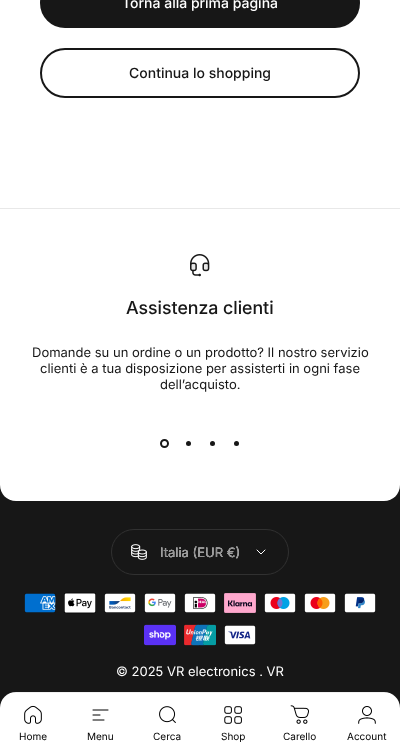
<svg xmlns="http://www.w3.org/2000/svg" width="400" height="753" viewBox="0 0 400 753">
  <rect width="100%" height="100%" fill="#fff"/>
  <rect x="41" y="-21" width="318" height="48" rx="24" fill="#171717" stroke="#171717" stroke-width="2"/>
  <rect x="41" y="49" width="318" height="48" rx="24" fill="none" stroke="#171717" stroke-width="2"/>
  <path d="M0 485h400v223H0z" fill="#171717"/>
  <path d="M0 208H400V485C400 494 393 501 384 501H16C7 501 0 494 0 485Z" fill="#fff"/>
  <path d="M0 208h400v1H0z" fill="#e8e8e8"/>
  <image x="190" y="254" width="20" height="23" href="img/1.png"/>
  <circle cx="164.5" cy="443.5" r="3.5" fill="none" stroke="#171717" stroke-width="2"/>
  <circle cx="188.5" cy="443.5" r="2.5" fill="#171717"/>
  <circle cx="212.5" cy="443.5" r="2.5" fill="#171717"/>
  <circle cx="236.5" cy="443.5" r="2.5" fill="#171717"/>
  <rect x="111.5" y="529.5" width="177" height="45" rx="22.5" fill="none" stroke="#313131"/>
  <image x="131" y="544" width="16" height="16" href="img/2.png"/>
  <path d="M257 550L261 554L265 550" fill="none" stroke="#fff" stroke-linecap="round" stroke-linejoin="round"/>
  <image x="24" y="593" width="32" height="20" href="img/3.png"/>
  <image x="64" y="592" width="32" height="22" href="img/4.png"/>
  <image x="104" y="593" width="32" height="20" href="img/5.png"/>
  <image x="144" y="593" width="32" height="20" href="img/6.png"/>
  <image x="184" y="593" width="32" height="20" href="img/7.png"/>
  <image x="224" y="593" width="32" height="20" href="img/8.png"/>
  <image x="264" y="593" width="32" height="20" href="img/9.png"/>
  <image x="304" y="593" width="32" height="20" href="img/10.png"/>
  <image x="344" y="593" width="32" height="20" href="img/11.png"/>
  <image x="144" y="624" width="32" height="22" href="img/12.png"/>
  <image x="184" y="624" width="32" height="22" href="img/13.png"/>
  <image x="224" y="625" width="32" height="20" href="img/14.png"/>
  <path d="M16 692H384C393 692 400 699 400 708V753H0V708C0 699 7 692 16 692Z" fill="#fff"/>
  <path d="M8 692h384v1H8z" fill="#0000000f"/>
  <image x="24" y="705" width="18" height="19" href="img/15.png"/>
  <path d="M93 710H108M93 715H100M93 720H104" fill="none" stroke="#000" stroke-linecap="round" stroke-linejoin="round"/>
  <image x="159" y="706" width="17" height="17" href="img/16.png"/>
  <image x="224" y="706" width="18" height="18" href="img/17.png"/>
  <image x="290" y="705" width="19" height="19" href="img/18.png"/>
  <image x="358" y="706" width="18" height="18" href="img/19.png"/>
  <text x="122" y="8" font-family="Inter" font-size="14" font-weight="500" fill="#fff">Torna alla prima pagina</text>
  <text x="129" y="78" font-family="Inter" font-size="14" font-weight="500" fill="#171717">Continua lo shopping</text>
  <text x="126" y="314" font-family="'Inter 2'" font-size="18" font-weight="500" fill="#171717">Assistenza clienti</text>
  <g font-family="Inter" font-size="13" fill="#171717">
    <text x="32" y="357">Domande su un ordine o un prodotto? Il nostro servizio</text>
    <text x="40" y="373">clienti è a tua disposizione per assisterti in ogni fase</text>
    <text x="160" y="389">dell’acquisto.</text>
  </g>
  <text x="160" y="557" font-family="Inter" font-size="13" fill="#fff">Italia (EUR €)</text>
  <text x="160" y="557" font-family="Inter" font-size="13" fill="#919191">Italia (EUR €)</text>
  <text x="116" y="676" font-family="Inter" font-size="13" fill="#fff">© 2025 VR electronics . VR</text>
  <g font-family="Inter" font-size="10" fill="#000">
    <text x="19" y="740">Home</text>
    <text x="87" y="740">Menu</text>
    <text x="153" y="740">Cerca</text>
    <text x="221" y="740">Shop</text>
    <text x="283" y="740">Carello</text>
    <text x="347" y="740">Account</text>
  </g>
</svg>
